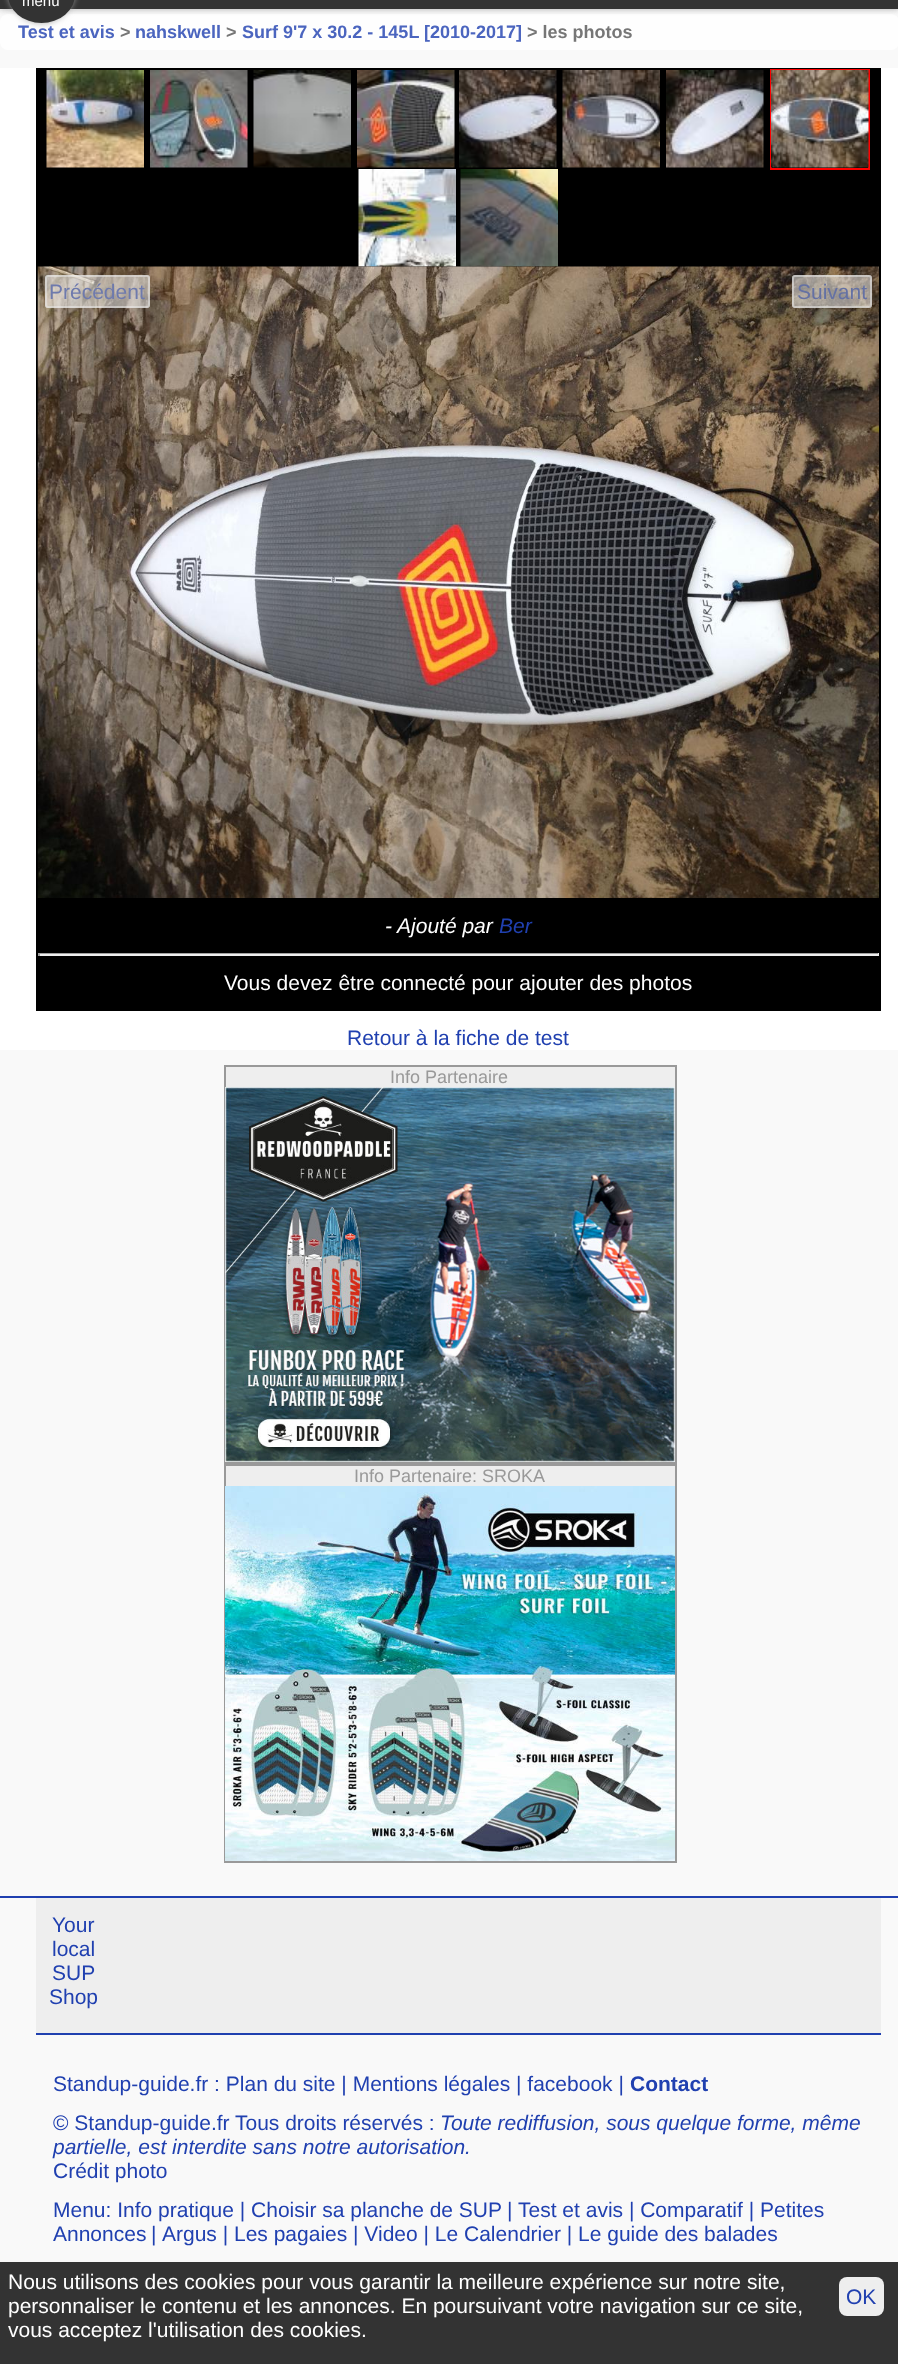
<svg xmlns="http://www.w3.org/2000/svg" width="898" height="2364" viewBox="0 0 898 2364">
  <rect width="100%" height="100%" fill="#f9f9f9"/>
  <rect y="14" width="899" height="36" rx="8" fill="#fefefe"/>
  <path d="M0 -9h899v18H0z" fill="#aaa" filter="blur(3px)"/>
  <path d="M0 0h898v9H0z" fill="#333"/>
  <rect x="8" y="-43" width="67" height="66" rx="33.5" fill="#aaa" filter="blur(3px)"/>
  <rect x="8" y="-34" width="67" height="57" rx="33.5" fill="#333"/>
  <path d="M0 68h898v982H0z" fill="#fff"/>
  <path d="M36 68h845v943H36z" fill="#000"/>
  <image x="46" y="70" width="98" height="98" href="img/1.png"/>
  <image x="150" y="70" width="98" height="98" href="img/2.png"/>
  <image x="253" y="70" width="98" height="98" href="img/3.png"/>
  <image x="357" y="70" width="98" height="98" href="img/4.png"/>
  <image x="459" y="70" width="98" height="98" href="img/5.png"/>
  <image x="562" y="70" width="98" height="98" href="img/6.png"/>
  <image x="666" y="70" width="98" height="98" href="img/7.png"/>
  <path d="M771 70h98v99H771z" fill="none" stroke="#f00" stroke-width="2"/>
  <image x="771" y="70" width="98" height="98" href="img/8.png"/>
  <image x="358" y="169" width="98" height="98" href="img/9.png"/>
  <image x="460" y="169" width="98" height="98" href="img/10.png"/>
  <image x="37" y="266" width="842" height="632" href="img/11.png"/>
  <rect x="45" y="275" width="105" height="33" rx="3" fill="#ffffff80"/>
  <rect x="46" y="276" width="103" height="31" rx="2" fill="none" stroke="#eeeeee80" stroke-width="2"/>
  <rect x="792" y="275" width="80" height="33" rx="3" fill="#ffffff80"/>
  <rect x="793" y="276" width="78" height="31" rx="2" fill="none" stroke="#eeeeee80" stroke-width="2"/>
  <path d="M38 953h841v1H38z" fill="#9f9f9f"/>
  <path d="M878 953h1v3H878z" fill="#eee"/>
  <path d="M38 954h841v2H38z" fill="#eee"/>
  <path d="M38 953h2v3H38z" fill="#9f9f9f"/>
  <path d="M226 1067h449v20H226z" fill="#eee"/>
  <path d="M225 1066h451v397H225z" fill="none" stroke="#999" stroke-width="2"/>
  <image x="225" y="1087" width="450" height="375" href="img/12.png"/>
  <path d="M226 1466h449v20H226z" fill="#eee"/>
  <path d="M225 1465h451v397H225z" fill="none" stroke="#999" stroke-width="2"/>
  <image x="225" y="1486" width="450" height="375" href="img/13.png"/>
  <path d="M0 1896h898v2H0z" fill="#2040b0"/>
  <path d="M36 2033h845v2H36z" fill="#2040b0"/>
  <path d="M36 1898h845v135H36z" fill="#eee"/>
  <path d="M0 2262h898v102H0z" fill="#333"/>
  <rect x="839" y="2277" width="45" height="39" rx="8" fill="#eee"/>
  <text x="22" y="6" font-family="Liberation Sans" font-size="15" fill="#fff">menu</text>
  <text x="18" y="38" font-family="Liberation Sans" font-size="18" font-weight="bold" fill="#4b65bf">Test et avis</text>
  <text x="120" y="38" font-family="Liberation Sans" font-size="18" font-weight="bold" fill="#767676">&gt;</text>
  <text x="135" y="38" font-family="Liberation Sans" font-size="18" font-weight="bold" fill="#4b65bf">nahskwell</text>
  <text x="226" y="38" font-family="Liberation Sans" font-size="18" font-weight="bold" fill="#767676">&gt;</text>
  <text x="242" y="38" font-family="Liberation Sans" font-size="18" font-weight="bold" fill="#4b65bf">Surf 9'7 x 30.2 - 145L [2010-2017]</text>
  <text x="527" y="38" font-family="Liberation Sans" font-size="18" font-weight="bold" fill="#767676">&gt; les photos</text>
  <text x="49" y="299" font-family="Liberation Sans" font-size="21" fill="#6e7aad">Précédent</text>
  <text x="797" y="299" font-family="Liberation Sans" font-size="21" fill="#6471a4">Suivant</text>
  <text x="385" y="933" font-family="Liberation Sans" font-size="21" font-style="italic" fill="#fff">- Ajouté par</text>
  <text x="499" y="933" font-family="Liberation Sans" font-size="21" font-style="italic" fill="#2040b0">Ber</text>
  <text x="224" y="990" font-family="Liberation Sans" font-size="21" fill="#fff">Vous devez être connecté pour ajouter des photos</text>
  <text x="347" y="1045" font-family="Liberation Sans" font-size="21" fill="#2040b0">Retour à la fiche de test</text>
  <g font-family="Liberation Sans" font-size="18" fill="#999">
    <text x="390" y="1083">Info Partenaire</text>
    <text x="354" y="1482">Info Partenaire: SROKA</text>
  </g>
  <g font-family="Liberation Sans" font-size="21" fill="#2040b0">
    <text x="52" y="1932">Your</text>
    <text x="52" y="1956">local</text>
    <text x="52" y="1980">SUP</text>
    <text x="49" y="2004">Shop</text>
    <text x="53" y="2091">Standup-guide.fr : Plan du site | Mentions légales | facebook |</text>
  </g>
  <text x="630" y="2091" font-family="Liberation Sans" font-size="21" font-weight="bold" fill="#2040b0">Contact</text>
  <g font-family="Liberation Sans" font-size="21" fill="#2040b0">
    <text x="53" y="2130">© Standup-guide.fr</text>
    <text x="235" y="2130">Tous droits réservés :</text>
  </g>
  <g font-family="Liberation Sans" font-size="21" font-style="italic" fill="#2040b0">
    <text x="440" y="2130">Toute rediffusion, sous quelque forme, même</text>
    <text x="53" y="2154">partielle, est interdite sans notre autorisation.</text>
  </g>
  <g font-family="Liberation Sans" font-size="21" fill="#2040b0">
    <text x="53" y="2178">Crédit photo</text>
    <text x="53" y="2217">Menu: Info pratique | Choisir sa planche de SUP</text>
    <text x="507" y="2217">|</text>
    <text x="518" y="2217">Test et avis | Comparatif | Petites</text>
    <text x="53" y="2241">Annonces</text>
    <text x="151" y="2241">|</text>
    <text x="162" y="2241">Argus | Les pagaies | Video | Le Calendrier | Le guide des balades</text>
  </g>
  <g font-family="Liberation Sans" font-size="21" fill="#fff">
    <text x="8" y="2289">Nous utilisons des cookies pour vous garantir la meilleure expérience sur notre site,</text>
    <text x="8" y="2313">personnaliser le contenu et les annonces. En poursuivant votre navigation sur ce site,</text>
    <text x="8" y="2337">vous acceptez l'utilisation des cookies.</text>
  </g>
  <text x="846" y="2304" font-family="Liberation Sans" font-size="21" fill="#2040b0">OK</text>
</svg>
